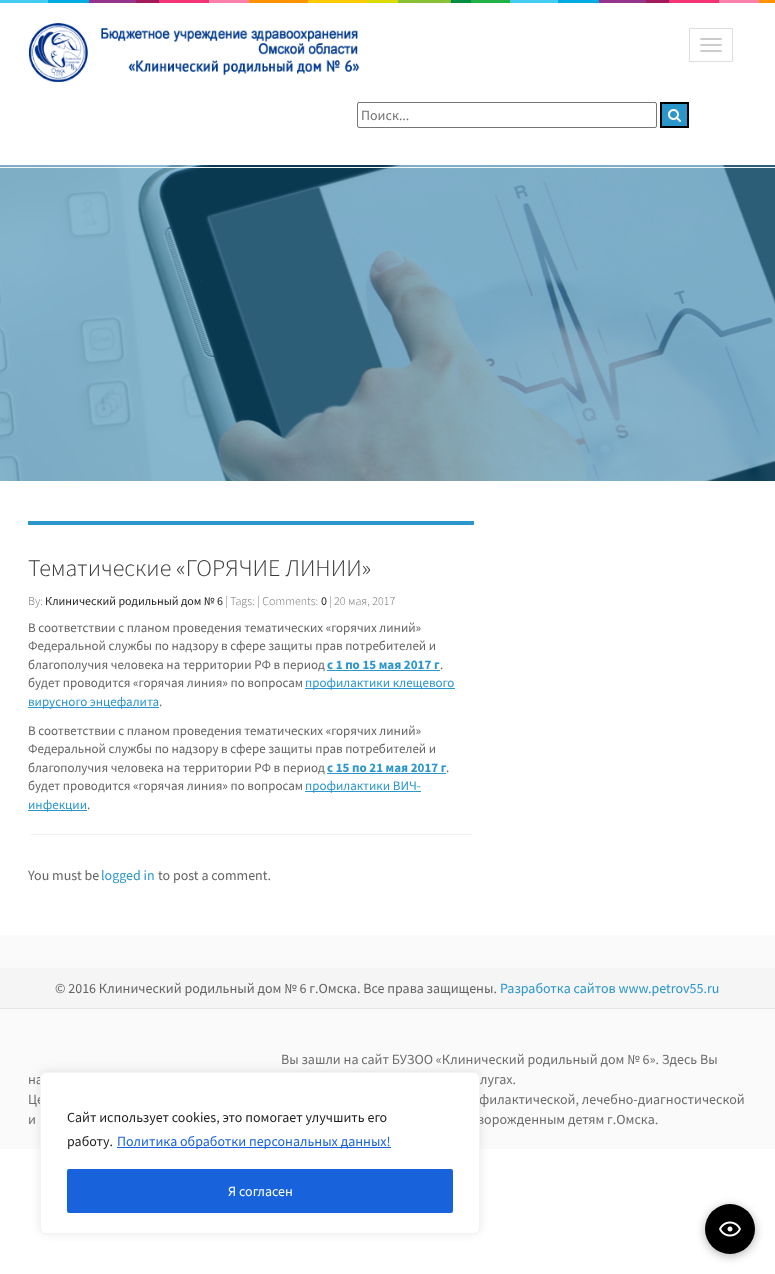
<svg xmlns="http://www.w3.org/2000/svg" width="775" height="1274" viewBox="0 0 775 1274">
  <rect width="100%" height="100%" fill="#fff"/>
  <image x="0" y="0" width="775" height="3" href="img/1.png"/>
  <image x="28" y="23" width="332" height="59" href="img/2.png"/>
  <path d="M689.5 28.5h43v33H689.5z" fill="none" stroke="#ddd"/>
  <rect x="700" y="38" width="22" height="2" rx="1" fill="#ccc"/>
  <rect x="700" y="44" width="22" height="2" rx="1" fill="#ccc"/>
  <rect x="700" y="50" width="22" height="2" rx="1" fill="#ccc"/>
  <rect x="357.5" y="102.5" width="299" height="25" rx="1.5" fill="none" stroke="#767676"/>
  <path d="M661 103h27v24H661z" fill="#2b96cc" stroke="#000" stroke-width="2"/>
  <image x="668" y="109" width="13" height="13" href="img/3.png"/>
  <image x="0" y="165" width="775" height="316" href="img/4.png"/>
  <path d="M0 167h775v1H0z" fill="#f4f4f4"/>
  <path d="M28 521h446v4H28z" fill="#2b96cc"/>
  <path d="M31 834h441v1H31z" fill="#eee"/>
  <path d="M327 670h113v1H327z" fill="#2b96cc"/>
  <path d="M305 688h150v1H305z" fill="#2b96cc"/>
  <path d="M28 707h131v1H28z" fill="#2b96cc"/>
  <path d="M327 773h119v1H327z" fill="#2b96cc"/>
  <path d="M305 791h116v1H305z" fill="#2b96cc"/>
  <path d="M28 810h59v1H28z" fill="#2b96cc"/>
  <path d="M0 935h775v214H0z" fill="#fafafa"/>
  <path d="M0 968h775v40H0z" fill="#f5f5f5"/>
  <path d="M0 1008h775v1H0z" fill="#e6e6e6"/>
  <rect x="40" y="1071" width="440" height="162" rx="6" fill="#acabab4d" filter="blur(5px)"/>
  <rect x="705" y="1206" width="50" height="50" rx="25" fill="#0000004d" filter="blur(5px)"/>
  <circle cx="730" cy="1229" r="25" fill="#000"/>
  <image x="719" y="1221" width="22" height="16" href="img/5.png"/>
  <text x="361" y="120" font-family="Source Sans Pro" font-size="14" fill="#727272">Поиск...</text>
  <text x="28" y="576" font-family="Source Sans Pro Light" font-size="24" font-weight="300" fill="#373737">Тематические «ГОРЯЧИЕ ЛИНИИ»</text>
  <text x="28" y="605" font-family="Source Sans Pro Light" font-size="12" font-weight="300" fill="#727272">By:</text>
  <text x="45" y="605" font-family="Source Sans Pro" font-size="12" fill="#1d1d1d">Клинический родильный дом № 6</text>
  <text x="225" y="605" font-family="Source Sans Pro Light" font-size="12" font-weight="300" fill="#727272">| Tags: | Comments:</text>
  <text x="321" y="605" font-family="Source Sans Pro" font-size="12" fill="#1d1d1d">0</text>
  <text x="329" y="605" font-family="Source Sans Pro Light" font-size="12" font-weight="300" fill="#727272">| 20 мая, 2017</text>
  <g font-family="Source Sans Pro" font-size="13" fill="#646464">
    <text x="28" y="632">В соответствии с планом проведения тематических «горячих линий»</text>
    <text x="28" y="650">Федеральной службы по надзору в сфере защиты прав потребителей и</text>
    <text x="28" y="669">благополучия человека на территории РФ в период</text>
  </g>
  <text x="327" y="669" font-family="Source Sans Pro" font-size="13" font-weight="bold" fill="#2b96cc">с 1 по 15 мая 2017 г</text>
  <g font-family="Source Sans Pro" font-size="13" fill="#646464">
    <text x="440" y="669">.</text>
    <text x="28" y="687">будет проводится «горячая линия» по вопросам</text>
  </g>
  <g font-family="Source Sans Pro" font-size="13" fill="#2b96cc">
    <text x="305" y="687">профилактики клещевого</text>
    <text x="28" y="706">вирусного энцефалита</text>
  </g>
  <g font-family="Source Sans Pro" font-size="13" fill="#646464">
    <text x="159" y="706">.</text>
    <text x="28" y="735">В соответствии с планом проведения тематических «горячих линий»</text>
    <text x="28" y="753">Федеральной службы по надзору в сфере защиты прав потребителей и</text>
    <text x="28" y="772">благополучия человека на территории РФ в период</text>
  </g>
  <text x="327" y="772" font-family="Source Sans Pro" font-size="13" font-weight="bold" fill="#2b96cc">с 15 по 21 мая 2017 г</text>
  <g font-family="Source Sans Pro" font-size="13" fill="#646464">
    <text x="446" y="772">.</text>
    <text x="28" y="790">будет проводится «горячая линия» по вопросам</text>
  </g>
  <g font-family="Source Sans Pro" font-size="13" fill="#2b96cc">
    <text x="305" y="790">профилактики ВИЧ-</text>
    <text x="28" y="809">инфекции</text>
  </g>
  <text x="87" y="809" font-family="Source Sans Pro" font-size="13" fill="#646464">.</text>
  <text x="28" y="880" font-family="Source Sans Pro" font-size="14" fill="#646464">You must be</text>
  <text x="101" y="880" font-family="Source Sans Pro" font-size="14" fill="#2b96cc">logged in</text>
  <g font-family="Source Sans Pro" font-size="14" fill="#646464">
    <text x="158" y="880">to post a comment.</text>
    <text x="55" y="993">© 2016 Клинический родильный дом № 6 г.Омска. Все права защищены.</text>
  </g>
  <text x="500" y="993" font-family="Source Sans Pro" font-size="14" fill="#2b96cc">Разработка сайтов www.petrov55.ru</text>
  <g font-family="Source Sans Pro" font-size="14" fill="#6c6c6c">
    <text x="281" y="1064">Вы зашли на сайт БУЗОО «Клинический родильный дом № 6». Здесь Вы</text>
    <text x="28" y="1084">на</text>
    <text x="480" y="1084">лугах.</text>
    <text x="28" y="1104">Це</text>
    <text x="479" y="1104">филактической, лечебно-диагностической</text>
    <text x="28" y="1124">и</text>
    <text x="477" y="1124">ворожденным детям г.Омска.</text>
  </g>
  <rect x="40.5" y="1072.5" width="439" height="161" rx="5.5" fill="#fff" stroke="#f4f4f4"/>
  <g font-family="Source Sans Pro" font-size="14" fill="#1d1d1d">
    <text x="67" y="1122">Сайт использует cookies, это помогает улучшить его</text>
    <text x="67" y="1146">работу.</text>
  </g>
  <path d="M117 1147h274v1H117z" fill="#1863dc"/>
  <text x="117" y="1146" font-family="Source Sans Pro" font-size="14" fill="#1863dc">Политика обработки персональных данных!</text>
  <rect x="68" y="1170" width="384" height="42" rx="1" fill="#1863dc" stroke="#1863dc" stroke-width="2"/>
  <text x="228" y="1196" font-family="Source Sans Pro" font-size="14" fill="#fff">Я согласен</text>
</svg>
